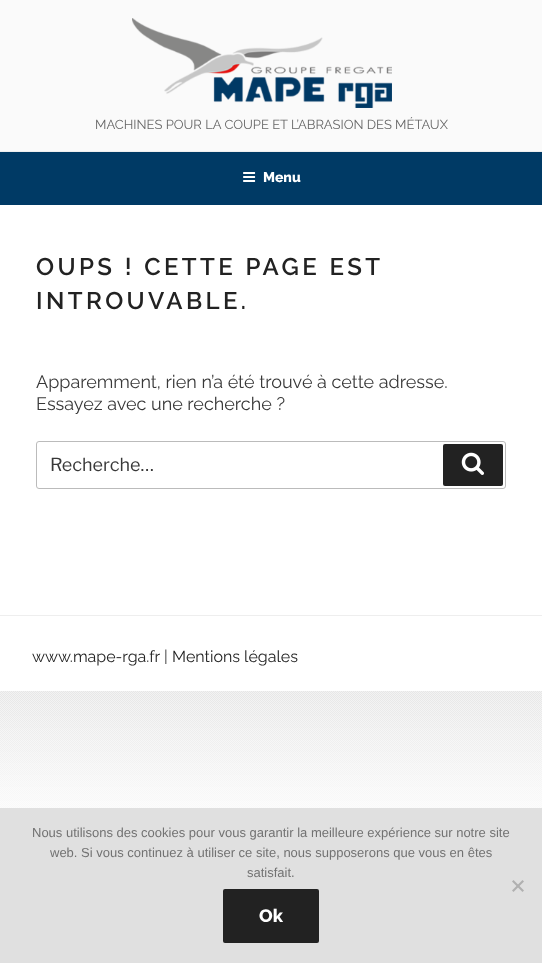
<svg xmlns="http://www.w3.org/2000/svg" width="542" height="963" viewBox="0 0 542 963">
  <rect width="100%" height="100%" fill="#fff"/>
  <image x="0" y="691" width="542" height="117" href="img/1.png"/>
  <path d="M0 0h542v151H0z" fill="#fafafa"/>
  <image x="132" y="18" width="260" height="90" href="img/2.png"/>
  <path d="M0 152h542v53H0z" fill="#003a65"/>
  <path d="M0 151h542v1H0z" fill="#eee"/>
  <image x="243" y="172" width="13" height="10" href="img/3.png"/>
  <rect x="36.5" y="441.5" width="469" height="47" rx="2.5" fill="none" stroke="#bbb"/>
  <rect x="443" y="444" width="60" height="42" rx="2" fill="#222"/>
  <image x="461" y="452" width="23" height="23" href="img/4.png"/>
  <path d="M0 615h542v1H0z" fill="#eee"/>
  <path d="M0 808h542v155H0z" fill="#e0e0e0"/>
  <path d="M522.5 880L524 881.5L513.5 892L512 890.5Z" fill="#b0b0b0"/>
  <path d="M512 881.5L513.5 880L524 890.5L522.5 892Z" fill="#b0b0b0"/>
  <rect x="223" y="889" width="96" height="54" rx="2" fill="#222"/>
  <text x="95" y="129" font-family="Raleway" font-size="13" fill="#666">MACHINES POUR LA COUPE ET L’ABRASION DES MÉTAUX</text>
  <text x="263" y="182" font-family="Raleway" font-size="14" font-weight="800" fill="#fff">Menu</text>
  <g font-family="Raleway" font-size="24" font-weight="600" letter-spacing="3.4" fill="#222">
    <text x="36" y="275">OUPS ! CETTE PAGE EST</text>
    <text x="36" y="309">INTROUVABLE.</text>
  </g>
  <g font-family="Raleway" font-size="18" fill="#383838">
    <text x="36" y="388">Apparemment, rien n’a été trouvé à cette adresse.</text>
    <text x="36" y="410">Essayez avec une recherche ?</text>
  </g>
  <text x="50" y="471" font-family="Libre Franklin" font-size="18" font-weight="100" fill="#383838">Recherche…</text>
  <text x="32" y="662" font-family="Raleway" font-size="16" fill="#222">www.mape-rga.fr</text>
  <text x="164" y="662" font-family="Raleway" font-size="16" fill="#383838">|</text>
  <text x="172" y="662" font-family="Raleway" font-size="16" fill="#222">Mentions légales</text>
  <g font-family="Liberation Sans" font-size="13" fill="#727272">
    <text x="32" y="837">Nous utilisons des cookies pour vous garantir la meilleure expérience sur notre site</text>
    <text x="50" y="857">web. Si vous continuez à utiliser ce site, nous supposerons que vous en êtes</text>
    <text x="247" y="877">satisfait.</text>
  </g>
  <text x="259" y="922" font-family="Raleway" font-size="18" font-weight="800" fill="#fff">Ok</text>
</svg>
